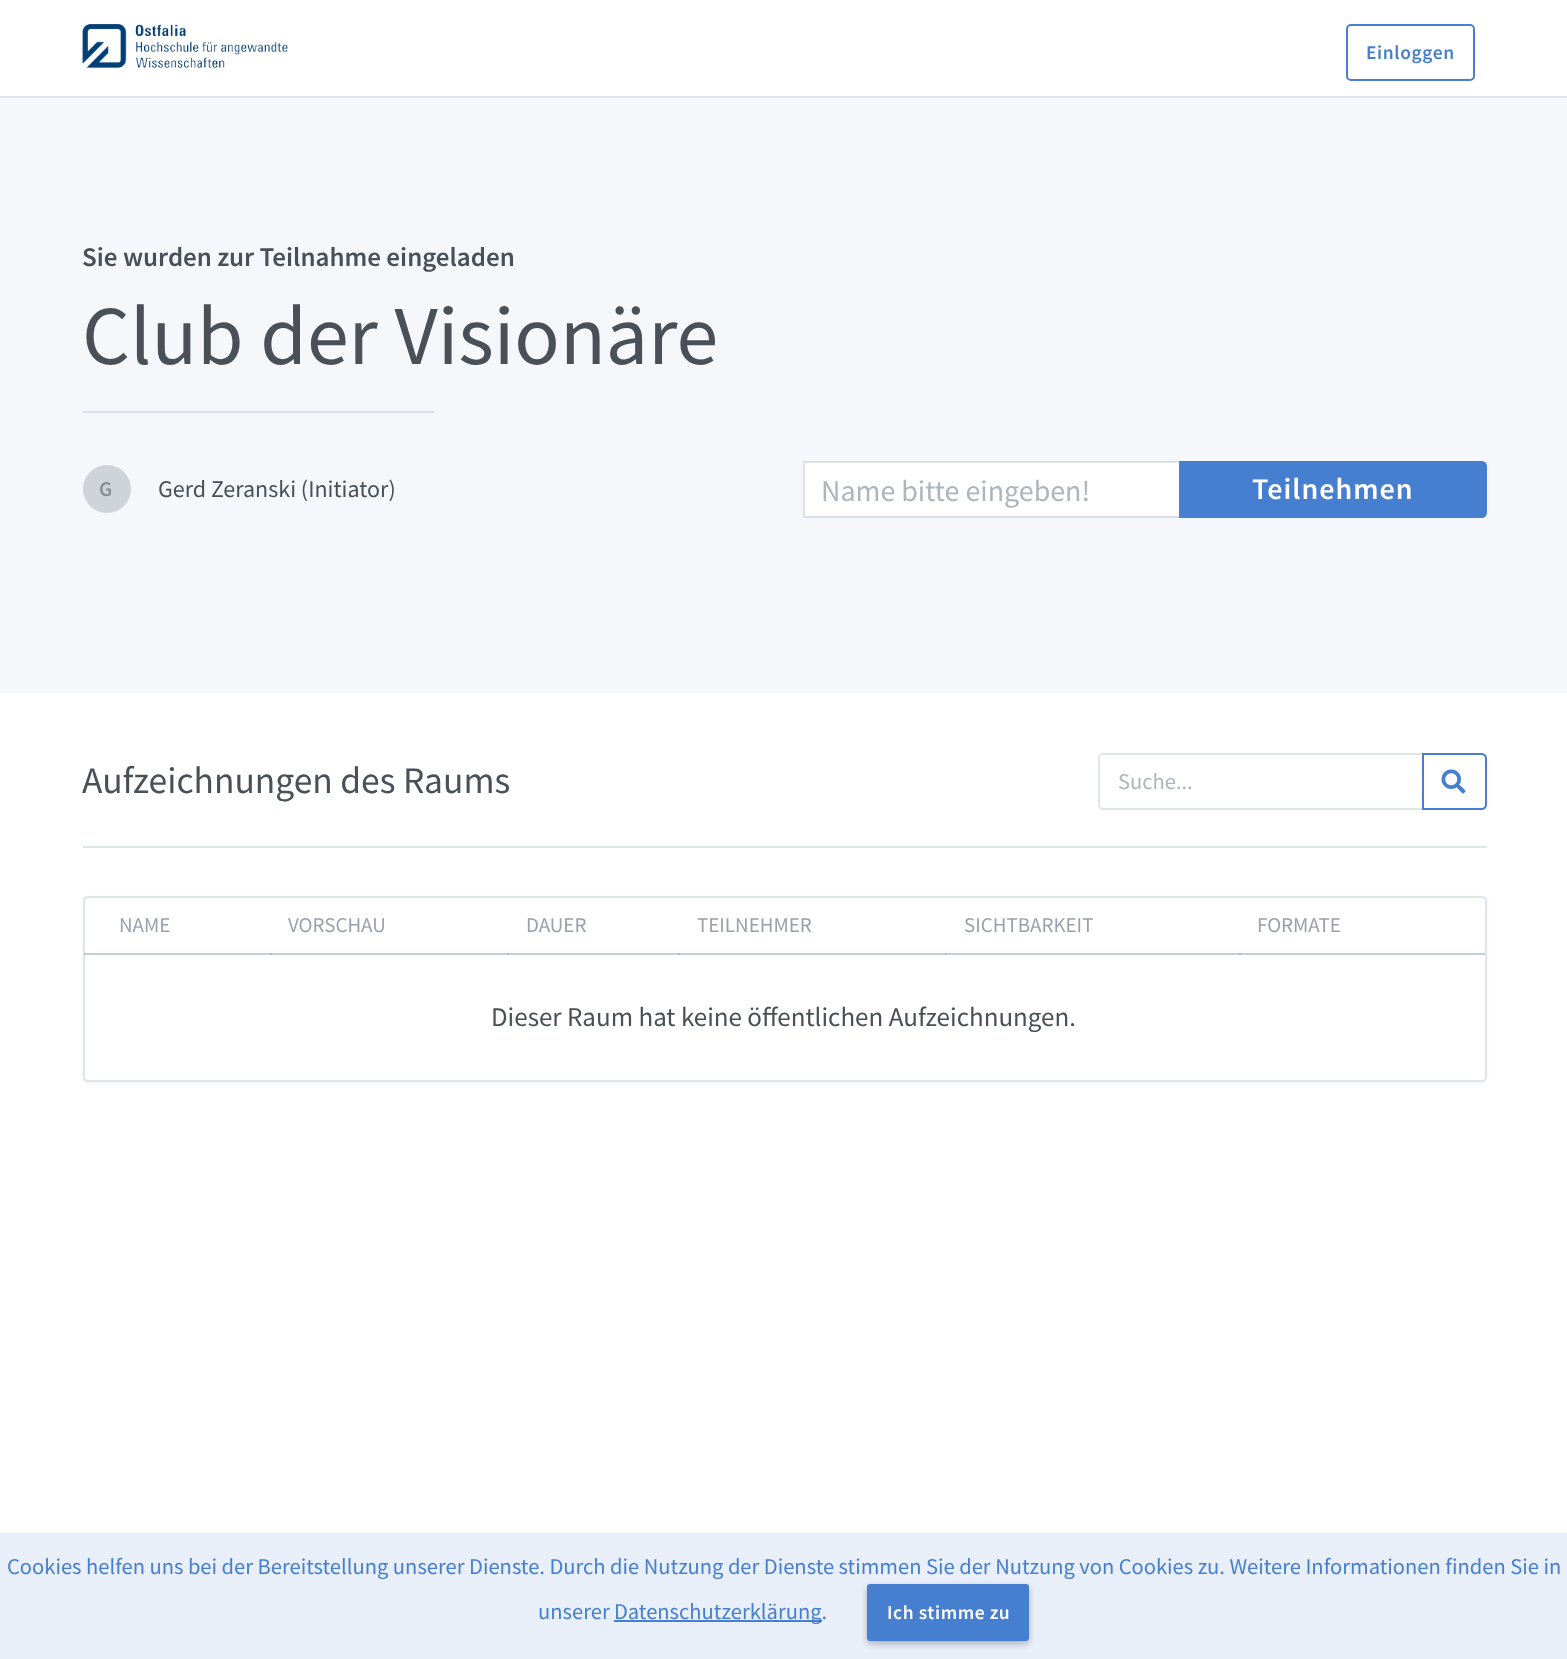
<svg xmlns="http://www.w3.org/2000/svg" width="1567" height="1659" viewBox="0 0 1567 1659">
  <rect width="100%" height="100%" fill="#fff"/>
  <path d="M0 96h1567v2H0z" fill="#e0e5ec"/>
  <image x="82" y="24" width="206" height="45" href="img/1.png"/>
  <rect x="1347" y="25" width="127" height="55" rx="4" fill="none" stroke="#467fcf" stroke-width="2"/>
  <path d="M0 98h1567v595H0z" fill="#f5f7fb"/>
  <path d="M83 411h351v2H83z" fill="#d8dee9"/>
  <circle cx="107" cy="489" r="24" fill="#ced4da"/>
  <path d="M804 462h375v54H804z" fill="#fff"/>
  <path d="M804 462h376v55H804z" fill="none" stroke="#0028641f" stroke-width="2"/>
  <path d="M1180 462H1482C1484 462 1486 464 1486 466V513C1486 515 1484 517 1482 517H1180Z" fill="#467fcf" stroke="#467fcf" stroke-width="2"/>
  <path d="M1103 754H1423V809H1103C1101 809 1099 807 1099 805V758C1099 756 1101 754 1103 754Z" fill="none" stroke="#e0e5ec" stroke-width="2"/>
  <path d="M1423 754H1482C1484 754 1486 756 1486 758V805C1486 807 1484 809 1482 809H1423Z" fill="none" stroke="#467fcf" stroke-width="2"/>
  <image x="1441" y="769" width="25" height="25" href="img/2.png"/>
  <path d="M83 846h1404v2H83z" fill="#e0e5ec"/>
  <rect x="83" y="897" width="1404" height="186" rx="5" fill="#0000000d" filter="blur(1.5px)"/>
  <rect x="83" y="896" width="1404" height="186" rx="5" fill="#fff"/>
  <rect x="84" y="897" width="1402" height="184" rx="4" fill="none" stroke="#0028641f" stroke-width="2"/>
  <path d="M1239 953h246v2H1239z" fill="#c5cedc"/>
  <path d="M84 953h1155v2H84z" fill="#0028641f"/>
  <path d="M945 953h296v2H945z" fill="#0028641f"/>
  <path d="M678 953h269v2H678z" fill="#0028641f"/>
  <path d="M507 953h173v2H507z" fill="#0028641f"/>
  <path d="M270 953h239v2H270z" fill="#0028641f"/>
  <path d="M84 953h188v2H84z" fill="#0028641f"/>
  <path d="M0 1533h1567v126H0z" fill="#e8eff9"/>
  <path d="M614 1620h208v2H614z" fill="#467fcf"/>
  <rect x="867" y="1587" width="162" height="57" rx="3" fill="#00000040" filter="blur(3px)"/>
  <rect x="868" y="1585" width="160" height="55" rx="2" fill="#467fcf" stroke="#467fcf" stroke-width="2"/>
  <text x="1366" y="59" font-family="Source Sans Pro" font-size="19.5" font-weight="600" letter-spacing="0.6" fill="#467fcf">Einloggen</text>
  <text x="82" y="266" font-family="Source Sans Pro" font-size="27" font-weight="600" fill="#495057">Sie wurden zur Teilnahme eingeladen</text>
  <text x="82" y="364" font-family="Source Sans Pro" font-size="84" fill="#495057">Club der Visionäre</text>
  <text x="99" y="496" font-family="Source Sans Pro" font-size="21" font-weight="600" fill="#868e96">G</text>
  <text x="158" y="497" font-family="Source Sans Pro" font-size="24" fill="#495057">Gerd Zeranski (Initiator)</text>
  <text x="821" y="501" font-family="Source Sans Pro" font-size="30" fill="#adb5bd">Name bitte eingeben!</text>
  <text x="1252" y="499" font-family="Source Sans Pro" font-size="30" font-weight="600" letter-spacing="1" fill="#fff">Teilnehmen</text>
  <text x="82" y="793" font-family="Source Sans Pro" font-size="37.5" fill="#495057">Aufzeichnungen des Raums</text>
  <text x="1118" y="789" font-family="Source Sans Pro" font-size="22.5" fill="#adb5bd">Suche...</text>
  <g font-family="Source Sans Pro" font-size="21" fill="#9aa0ac">
    <text x="119" y="932">NAME</text>
    <text x="288" y="932">VORSCHAU</text>
    <text x="526" y="932">DAUER</text>
    <text x="697" y="932">TEILNEHMER</text>
    <text x="964" y="932">SICHTBARKEIT</text>
    <text x="1257" y="932">FORMATE</text>
  </g>
  <text x="491" y="1026" font-family="Source Sans Pro" font-size="27" fill="#495057">Dieser Raum hat keine öffentlichen Aufzeichnungen.</text>
  <g font-family="Source Sans Pro" font-size="22.5" fill="#467fcf">
    <text x="7" y="1574">Cookies helfen uns bei der Bereitstellung unserer Dienste. Durch die Nutzung der Dienste stimmen Sie der Nutzung von Cookies zu. Weitere Informationen finden Sie in</text>
    <text x="538" y="1619">unserer</text>
    <text x="614" y="1619">Datenschutzerklärung.</text>
  </g>
  <text x="887" y="1619" font-family="Source Sans Pro" font-size="19.5" font-weight="600" letter-spacing="0.6" fill="#fff">Ich stimme zu</text>
</svg>
